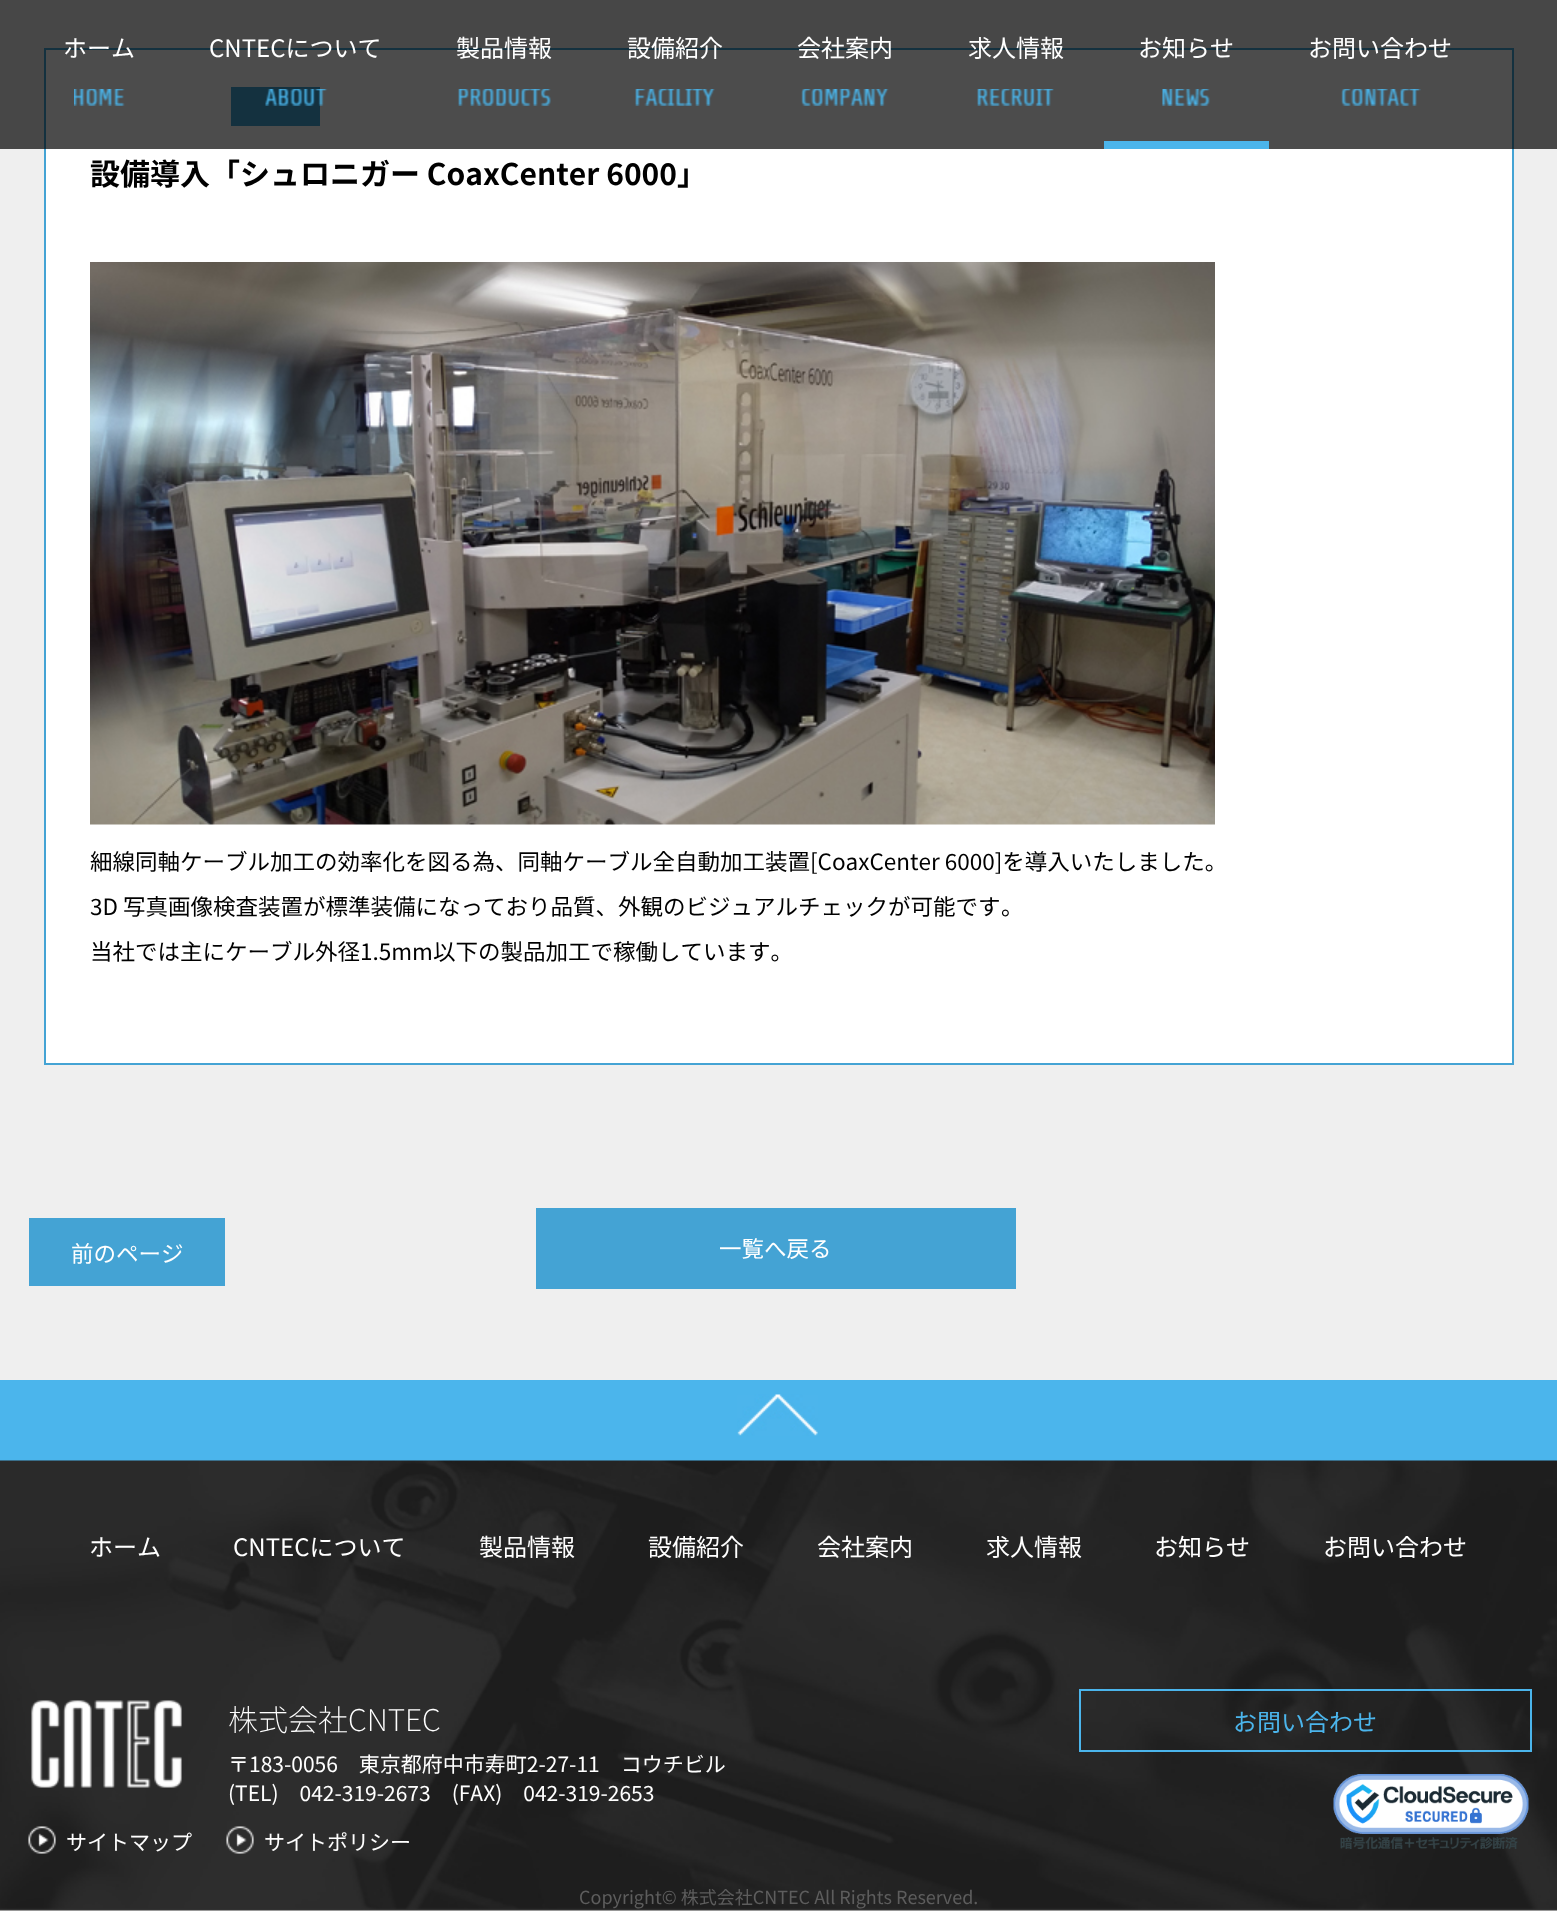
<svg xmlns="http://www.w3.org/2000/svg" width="1557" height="1913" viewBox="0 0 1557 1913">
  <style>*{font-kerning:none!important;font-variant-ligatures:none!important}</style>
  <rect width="100%" height="100%" fill="#fff"/>
  <path d="M0 0h1557v1380H0z" fill="#efefef"/>
  <path d="M45 49h1468v1015H45z" fill="#fff" stroke="#44a3d4" stroke-width="2"/>
  <path d="M231 87h89v39H231z" fill="#44a3d4"/>
  <path d="M0 0h1557v149H0z" fill="#000000b3"/>
  <image x="74" y="89" width="51" height="17" href="img/1.png"/>
  <image x="265" y="89" width="63" height="17" href="img/2.png"/>
  <image x="458" y="89" width="93" height="17" href="img/3.png"/>
  <image x="635" y="89" width="80" height="17" href="img/4.png"/>
  <image x="801" y="89" width="88" height="17" href="img/5.png"/>
  <image x="977" y="89" width="77" height="17" href="img/6.png"/>
  <path d="M1104 141h165v8H1104z" fill="#4bb5ec"/>
  <image x="1162" y="89" width="48" height="17" href="img/7.png"/>
  <image x="1341" y="89" width="80" height="17" href="img/8.png"/>
  <image x="90" y="262" width="1125" height="563" href="img/9.png"/>
  <path d="M29 1218h196v68H29z" fill="#44a3d4"/>
  <path d="M536 1208h480v81H536z" fill="#44a3d4"/>
  <path d="M0 1380h1557v81H0z" fill="#4bb5ec"/>
  <image x="737" y="1394" width="81" height="42" href="img/10.png"/>
  <image x="0" y="1460" width="1557" height="451" href="img/11.png"/>
  <image x="31" y="1700" width="151" height="88" href="img/12.png"/>
  <image x="28" y="1826" width="28" height="28" href="img/13.png"/>
  <image x="226" y="1826" width="28" height="28" href="img/14.png"/>
  <path d="M1080 1690h451v61H1080z" fill="none" stroke="#4bb5ec" stroke-width="2"/>
  <image x="1333" y="1774" width="196" height="75" href="img/15.png"/>
  <g font-family="Noto Sans JP" font-size="24" fill="#fff">
    <text x="63" y="57">ホーム</text>
    <text x="209" y="57">CNTECについて</text>
    <text x="456" y="57">製品情報</text>
    <text x="627" y="57">設備紹介</text>
    <text x="797" y="57">会社案内</text>
    <text x="968" y="57">求人情報</text>
    <text x="1138" y="57">お知らせ</text>
    <text x="1308" y="57">お問い合わせ</text>
  </g>
  <text x="90" y="185" font-family="Noto Sans JP" font-size="30" font-weight="bold" fill="#000">設備導入「シュロニガー CoaxCenter 6000」</text>
  <g font-family="Noto Sans JP" font-size="22.5" fill="#000">
    <text x="90" y="870">細線同軸ケーブル加工の効率化を図る為、同軸ケーブル全自動加工装置[CoaxCenter 6000]を導入いたしました。</text>
    <text x="90" y="915">3D 写真画像検査装置が標準装備になっており品質、外観のビジュアルチェックが可能です</text>
    <text x="1001" y="915">。</text>
    <text x="90" y="960">当社では主にケーブル外径1.5mm以下の製品加工で稼働しています。</text>
  </g>
  <g font-family="Noto Sans JP" font-size="22.5" fill="#fff">
    <text x="71" y="1262">前のページ</text>
    <text x="719" y="1257">一覧へ戻る</text>
  </g>
  <g font-family="Noto Sans JP" font-size="24" fill="#fff">
    <text x="89" y="1556">ホーム</text>
    <text x="233" y="1556">CNTECについて</text>
    <text x="479" y="1556">製品情報</text>
    <text x="648" y="1556">設備紹介</text>
    <text x="817" y="1556">会社案内</text>
    <text x="986" y="1556">求人情報</text>
    <text x="1154" y="1556">お知らせ</text>
    <text x="1323" y="1556">お問い合わせ</text>
  </g>
  <text x="228" y="1731" font-family="Noto Sans JP" font-size="30" font-weight="200" fill="#fff">株式会社CNTEC</text>
  <g font-family="Noto Sans JP" font-size="21" fill="#fff">
    <text x="228" y="1772">〒183-0056　東京都府中市寿町2-27-11　コウチビル</text>
    <text x="228" y="1801">(TEL)　042-319-2673　(FAX)　042-319-2653</text>
    <text x="66" y="1850">サイトマップ</text>
    <text x="264" y="1850">サイトポリシー</text>
  </g>
  <text x="1233" y="1731" font-family="Noto Sans JP" font-size="24" fill="#4bb5ec">お問い合わせ</text>
  <text x="579" y="1904" font-family="Noto Sans JP" font-size="18" fill="#5d5d5d">Copyright© 株式会社CNTEC All Rights Reserved.</text>
</svg>
